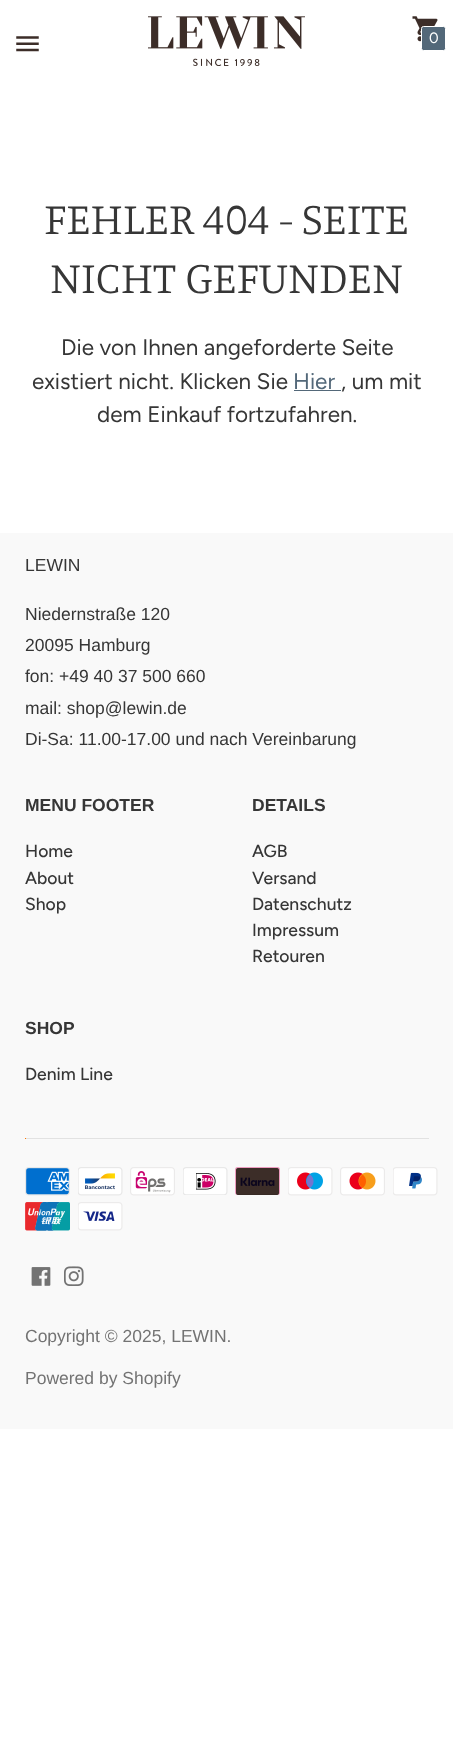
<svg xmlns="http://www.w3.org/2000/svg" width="453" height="1750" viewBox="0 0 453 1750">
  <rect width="100%" height="100%" fill="#fff"/>
  <image x="16" y="36" width="23" height="16" href="img/1.png"/>
  <image x="148" y="16" width="157" height="50" href="img/2.png"/>
  <image x="412" y="16" width="26" height="26" href="img/3.png"/>
  <rect x="421.5" y="26.5" width="24" height="24" rx="2" fill="#536879" stroke="#fff"/>
  <path d="M294 390h47v1H294z" fill="#536879"/>
  <path d="M0 533h453v896H0z" fill="#f9f9f9"/>
  <path d="M25 1138h404v1H25z" fill="#e2e2e2"/>
  <path d="M25 1138h1v1H25z" fill="#ff7800"/>
  <image x="25" y="1167" width="45" height="29" href="img/4.png"/>
  <image x="78" y="1167" width="45" height="29" href="img/5.png"/>
  <image x="130" y="1167" width="45" height="29" href="img/6.png"/>
  <image x="183" y="1167" width="45" height="28" href="img/7.png"/>
  <image x="235" y="1167" width="45" height="28" href="img/8.png"/>
  <image x="288" y="1167" width="45" height="29" href="img/9.png"/>
  <image x="340" y="1167" width="45" height="29" href="img/10.png"/>
  <image x="393" y="1167" width="45" height="29" href="img/11.png"/>
  <image x="25" y="1202" width="45" height="29" href="img/12.png"/>
  <image x="78" y="1202" width="45" height="29" href="img/13.png"/>
  <image x="31" y="1267" width="20" height="19" href="img/14.png"/>
  <image x="64" y="1266" width="20" height="20" href="img/15.png"/>
  <text x="429" y="43" font-family="Figtree" font-size="15" fill="#fff">0</text>
  <g font-family="Manuale" font-size="45" font-weight="300" fill="#363636">
    <text x="44" y="234">FEHLER 404 - SEITE</text>
    <text x="50" y="293">NICHT GEFUNDEN</text>
  </g>
  <g font-family="Figtree" font-size="22.5" fill="#363636">
    <text x="61" y="355">Die von Ihnen angeforderte Seite</text>
    <text x="32" y="389">existiert nicht. Klicken Sie</text>
  </g>
  <text x="293" y="389" font-family="Figtree" font-size="22.5" fill="#536879">Hier</text>
  <g font-family="Figtree" font-size="22.5" fill="#363636">
    <text x="341" y="389">, um mit</text>
    <text x="97" y="422">dem Einkauf fortzufahren.</text>
  </g>
  <g font-family="Liberation Sans" font-size="17.5" fill="#363636">
    <text x="25" y="571">LEWIN</text>
    <text x="25" y="620">Niedernstraße 120</text>
    <text x="25" y="651">20095 Hamburg</text>
    <text x="25" y="682">fon: +49 40 37 500 660</text>
    <text x="25" y="714">mail: shop@lewin.de</text>
    <text x="25" y="745">Di-Sa: 11.00-17.00 und nach Vereinbarung</text>
  </g>
  <text x="25" y="811" font-family="Liberation Sans" font-size="17.5" font-weight="bold" fill="#363636">MENU FOOTER</text>
  <g font-family="Figtree" font-size="17.5" font-weight="500" fill="#363636">
    <text x="25" y="857">Home</text>
    <text x="25" y="884">About</text>
    <text x="25" y="910">Shop</text>
  </g>
  <text x="252" y="811" font-family="Liberation Sans" font-size="17.5" font-weight="bold" fill="#363636">DETAILS</text>
  <g font-family="Figtree" font-size="17.5" font-weight="500" fill="#363636">
    <text x="252" y="857">AGB</text>
    <text x="252" y="884">Versand</text>
    <text x="252" y="910">Datenschutz</text>
    <text x="252" y="936">Impressum</text>
    <text x="252" y="962">Retouren</text>
  </g>
  <text x="25" y="1034" font-family="Liberation Sans" font-size="17.5" font-weight="bold" fill="#363636">SHOP</text>
  <text x="25" y="1080" font-family="Figtree" font-size="17.5" font-weight="500" fill="#363636">Denim Line</text>
  <g font-family="Liberation Sans" font-size="17.5" fill="#737373">
    <text x="25" y="1342">Copyright © 2025, LEWIN.</text>
    <text x="25" y="1384">Powered by Shopify</text>
  </g>
</svg>
